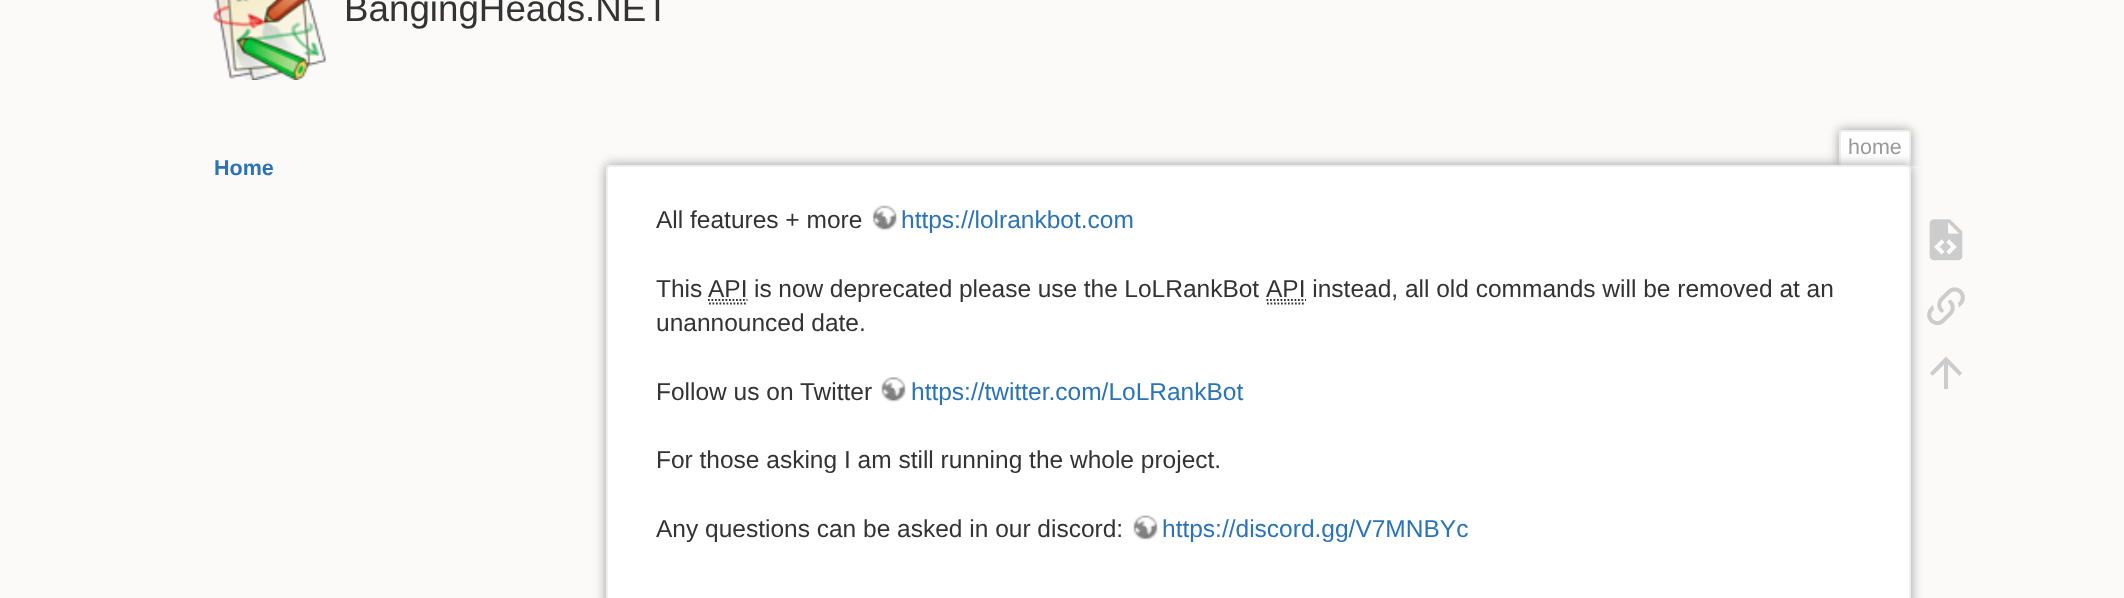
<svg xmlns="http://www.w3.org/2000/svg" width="2124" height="598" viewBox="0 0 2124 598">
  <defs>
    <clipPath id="clip1"><path d="M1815 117h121v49H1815z"/></clipPath>
  </defs>
  <rect width="100%" height="100%" fill="#fbfaf9"/>
  <image x="213" y="0" width="113" height="80" href="img/1.png"/>
  <g clip-path="url(#clip1)">
    <rect x="1839" y="130" width="72" height="36" rx="4" fill="#999" filter="blur(5.5px)"/>
  </g>
  <path d="M1843 131H1907C1908 131 1909 132 1909 133V166H1841V133C1841 132 1842 131 1843 131Z" fill="#fff"/>
  <path d="M1841 130h68v2H1841z" fill="#eee"/>
  <path d="M1909 131h2v35H1909z" fill="#eee"/>
  <path d="M1839 131h2v35H1839z" fill="#eee"/>
  <rect x="606" y="165" width="1305" height="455" rx="4" fill="#999" filter="blur(6px)"/>
  <rect x="607" y="166" width="1303" height="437" rx="3" fill="#fff" stroke="#eee" stroke-width="2"/>
  <image x="872" y="205" width="26" height="26" href="img/2.png"/>
  <path d="M709 303.5H747M708 300H747.5" fill="none" stroke="#333" stroke-width="1.8" stroke-dasharray="1.75 1.75"/>
  <path d="M1267 303.5H1305.5M1266.5 300H1306" fill="none" stroke="#333" stroke-width="1.8" stroke-dasharray="1.75 1.75"/>
  <image x="881" y="377" width="25" height="26" href="img/3.png"/>
  <image x="1133" y="515" width="25" height="26" href="img/4.png"/>
  <image x="1929" y="219" width="34" height="42" href="img/5.png"/>
  <image x="1927" y="287" width="38" height="39" href="img/6.png"/>
  <path d="M1948 389H1944V364.5L1932.5 376L1930 373L1946 356.5L1962 373L1959.5 376L1948 364.5Z" fill="#ccc"/>
  <text x="344" y="21" font-family="Liberation Sans" font-size="36.75" fill="#333">BangingHeads.NET</text>
  <text x="214" y="175" font-family="Liberation Sans" font-size="21.5" font-weight="bold" fill="#2b73b7">Home</text>
  <text x="1848" y="154" font-family="Liberation Sans" font-size="21.5" fill="#999">home</text>
  <text x="656" y="228" font-family="Liberation Sans" font-size="24.5" fill="#333">All features + more</text>
  <text x="901" y="228" font-family="Liberation Sans" font-size="24.5" fill="#2b73b7">https://lolrankbot.com</text>
  <g font-family="Liberation Sans" font-size="24.5" fill="#333">
    <text x="656" y="297">This</text>
    <text x="708" y="297">API</text>
    <text x="754" y="297" word-spacing="-0.25">is now deprecated please use the LoLRankBot</text>
    <text x="1266" y="297">API instead, all old commands will be removed at an</text>
    <text x="656" y="331">unannounced date.</text>
    <text x="656" y="400">Follow us on Twitter</text>
  </g>
  <text x="911" y="400" font-family="Liberation Sans" font-size="24.5" fill="#2b73b7">https://twitter.com/LoLRankBot</text>
  <g font-family="Liberation Sans" font-size="24.5" fill="#333">
    <text x="656" y="468">For those asking I am still running the whole project.</text>
    <text x="656" y="537">Any questions can be asked in our discord:</text>
  </g>
  <text x="1162" y="537" font-family="Liberation Sans" font-size="24.5" fill="#2b73b7">https://discord.gg/V7MNBYc</text>
</svg>
